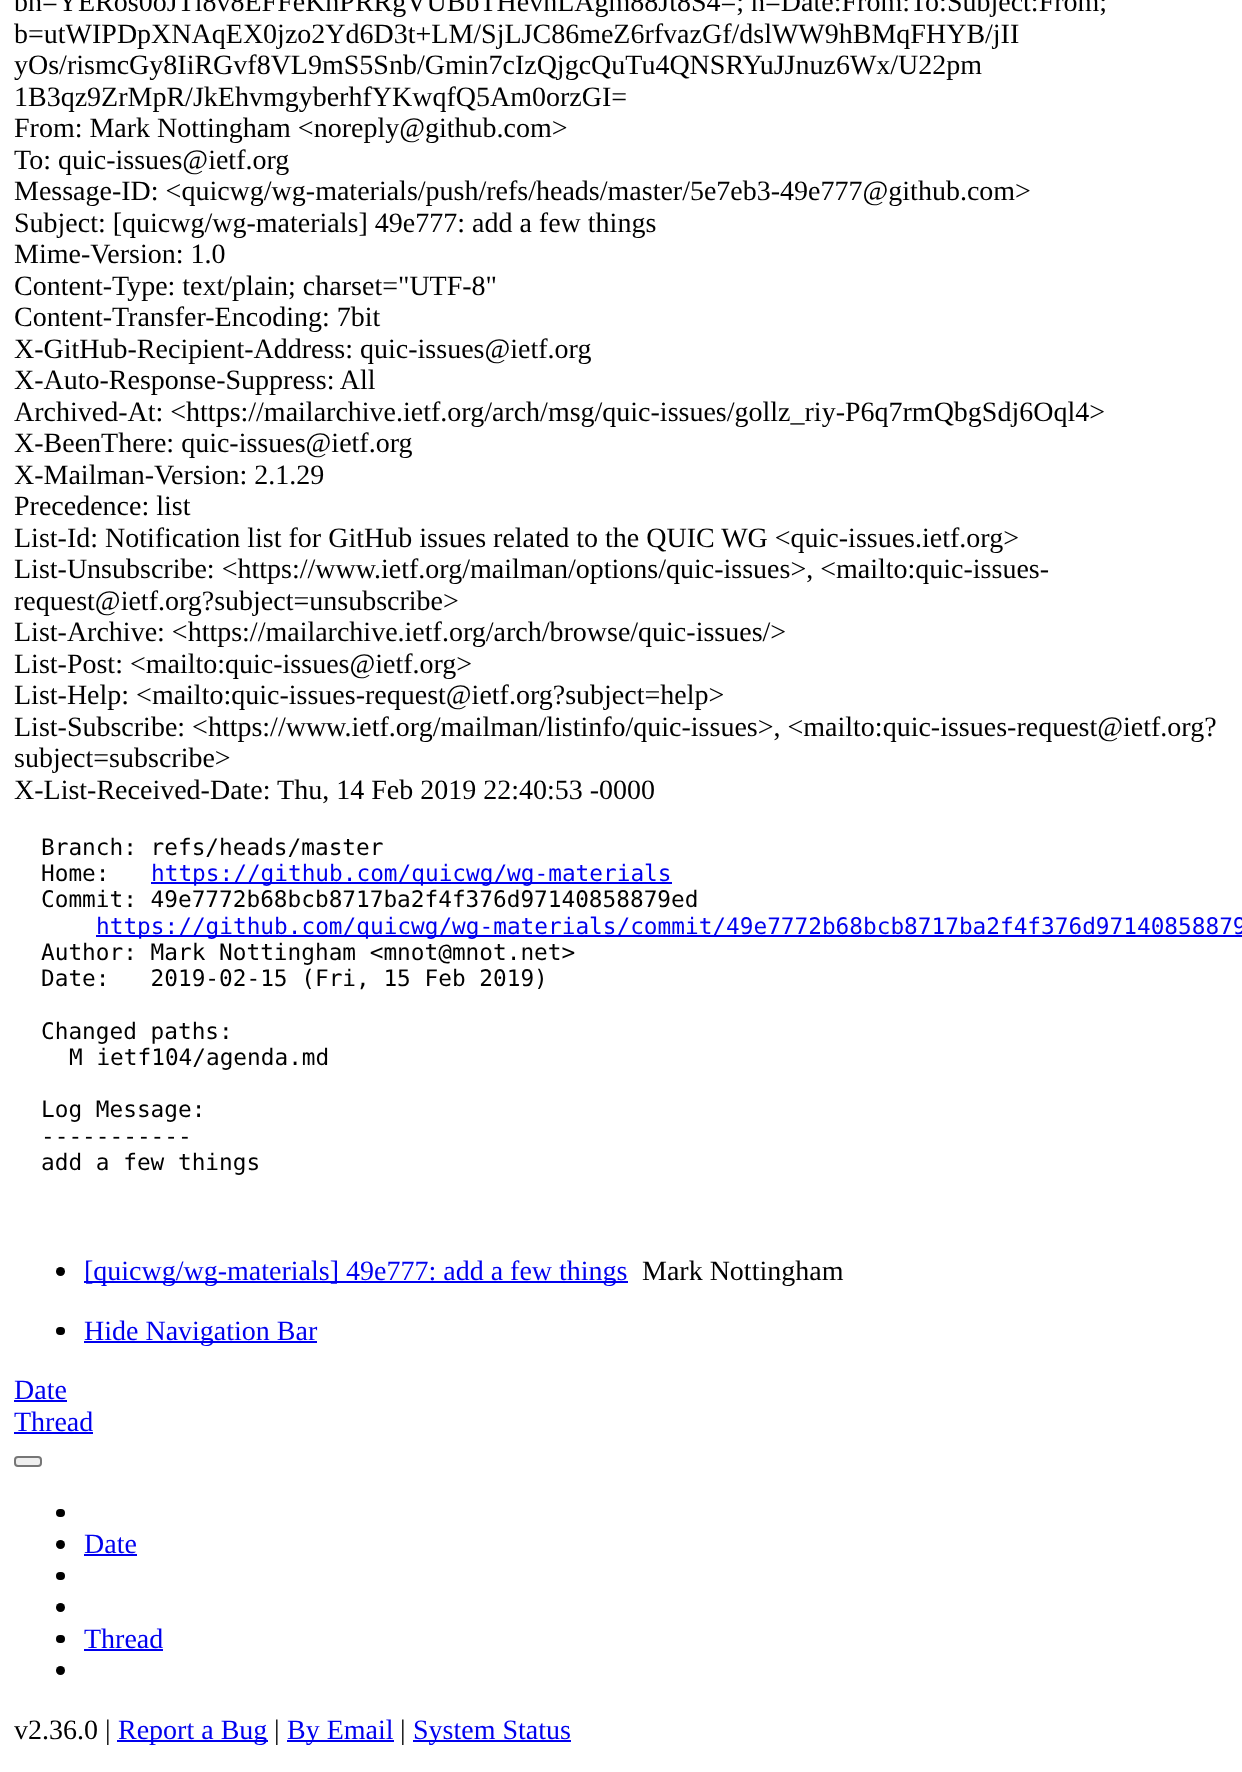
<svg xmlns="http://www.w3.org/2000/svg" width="1242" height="1772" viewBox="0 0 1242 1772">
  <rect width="100%" height="100%" fill="#fff"/>
  <path d="M151 882h521v2H151z" fill="#00e"/>
  <path d="M96 935h1146v2H96z" fill="#00e"/>
  <circle cx="60.5" cy="1271.5" r="4.5" fill="#000"/>
  <path d="M84 1281h544v2H84z" fill="#00e"/>
  <rect x="56" y="1327" width="9" height="8" rx="4" fill="#000"/>
  <path d="M84 1341h233v2H84z" fill="#00e"/>
  <path d="M14 1400h53v2H14z" fill="#00e"/>
  <path d="M14 1432h79v2H14z" fill="#00e"/>
  <rect x="15" y="1457" width="26" height="9" rx="3" fill="#efefef" stroke="#767676" stroke-width="2"/>
  <rect x="56" y="1509" width="9" height="8" rx="4" fill="#000"/>
  <circle cx="60.5" cy="1544.5" r="4.5" fill="#000"/>
  <path d="M84 1554h53v2H84z" fill="#00e"/>
  <rect x="56" y="1572" width="9" height="8" rx="4" fill="#000"/>
  <circle cx="60.5" cy="1607.5" r="4.5" fill="#000"/>
  <rect x="56" y="1635" width="9" height="8" rx="4" fill="#000"/>
  <path d="M84 1649h79v2H84z" fill="#00e"/>
  <circle cx="60.5" cy="1670.5" r="4.5" fill="#000"/>
  <path d="M117 1740h151v2H117z" fill="#00e"/>
  <path d="M287 1740h107v2H287z" fill="#00e"/>
  <path d="M413 1740h158v2H413z" fill="#00e"/>
  <g font-family="Liberation Serif" font-size="28" fill="#000">
    <text x="14" y="11">bh=YERos0oJTl8v8EFFeKhPRRgVUBbTHevnLAgm88Jt8S4=; h=Date:From:To:Subject:From;</text>
    <text x="14" y="43">b=utWIPDpXNAqEX0jzo2Yd6D3t+LM/SjLJC86meZ6rfvazGf/dslWW9hBMqFHYB/jII</text>
    <text x="14" y="74">yOs/rismcGy8IiRGvf8VL9mS5Snb/Gmin7cIzQjgcQuTu4QNSRYuJJnuz6Wx/U22pm</text>
    <text x="14" y="106">1B3qz9ZrMpR/JkEhvmgyberhfYKwqfQ5Am0orzGI=</text>
    <text x="14" y="137">From: Mark Nottingham &lt;noreply@github.com&gt;</text>
    <text x="14" y="169">To: quic-issues@ietf.org</text>
    <text x="14" y="200">Message-ID: &lt;quicwg/wg-materials/push/refs/heads/master/5e7eb3-49e777@github.com&gt;</text>
    <text x="14" y="232">Subject: [quicwg/wg-materials] 49e777: add a few things</text>
    <text x="14" y="263">Mime-Version: 1.0</text>
    <text x="14" y="295">Content-Type: text/plain; charset="UTF-8"</text>
    <text x="14" y="326">Content-Transfer-Encoding: 7bit</text>
    <text x="14" y="358">X-GitHub-Recipient-Address: quic-issues@ietf.org</text>
    <text x="14" y="389">X-Auto-Response-Suppress: All</text>
    <text x="14" y="421">Archived-At: &lt;https://mailarchive.ietf.org/arch/msg/quic-issues/gollz_riy-P6q7rmQbgSdj6Oql4&gt;</text>
    <text x="14" y="452">X-BeenThere: quic-issues@ietf.org</text>
    <text x="14" y="484">X-Mailman-Version: 2.1.29</text>
    <text x="14" y="515">Precedence: list</text>
    <text x="14" y="547">List-Id: Notification list for GitHub issues related to the QUIC WG &lt;quic-issues.ietf.org&gt;</text>
    <text x="14" y="578">List-Unsubscribe: &lt;https://www.ietf.org/mailman/options/quic-issues&gt;, &lt;mailto:quic-issues-</text>
    <text x="14" y="610">request@ietf.org?subject=unsubscribe&gt;</text>
    <text x="14" y="641">List-Archive: &lt;https://mailarchive.ietf.org/arch/browse/quic-issues/&gt;</text>
    <text x="14" y="673">List-Post: &lt;mailto:quic-issues@ietf.org&gt;</text>
    <text x="14" y="704">List-Help: &lt;mailto:quic-issues-request@ietf.org?subject=help&gt;</text>
    <text x="14" y="736">List-Subscribe: &lt;https://www.ietf.org/mailman/listinfo/quic-issues&gt;, &lt;mailto:quic-issues-request@ietf.org?</text>
    <text x="14" y="767">subject=subscribe&gt;</text>
    <text x="14" y="799">X-List-Received-Date: Thu, 14 Feb 2019 22:40:53 -0000</text>
  </g>
  <g font-family="DejaVu Sans Mono" font-size="22.75" fill="#000">
    <text x="41" y="855">Branch: refs/heads/master</text>
    <text x="41" y="881">Home:</text>
  </g>
  <text x="151" y="881" font-family="DejaVu Sans Mono" font-size="22.75" fill="#00e">https://github.com/quicwg/wg-materials</text>
  <text x="41" y="907" font-family="DejaVu Sans Mono" font-size="22.75" fill="#000">Commit: 49e7772b68bcb8717ba2f4f376d97140858879ed</text>
  <text x="96" y="934" font-family="DejaVu Sans Mono" font-size="22.75" fill="#00e">https://github.com/quicwg/wg-materials/commit/49e7772b68bcb8717ba2f4f376d97140858879</text>
  <g font-family="DejaVu Sans Mono" font-size="22.75" fill="#000">
    <text x="41" y="960">Author: Mark Nottingham &lt;mnot@mnot.net&gt;</text>
    <text x="41" y="986" xml:space="preserve">Date:   2019-02-15 (Fri, 15 Feb 2019)</text>
    <text x="41" y="1039">Changed paths:</text>
    <text x="69" y="1065">M ietf104/agenda.md</text>
    <text x="41" y="1117">Log Message:</text>
    <text x="41" y="1144">-----------</text>
    <text x="41" y="1170">add a few things</text>
  </g>
  <text x="84" y="1280" font-family="Liberation Serif" font-size="28" fill="#00e">[quicwg/wg-materials] 49e777: add a few things</text>
  <text x="642" y="1280" font-family="Liberation Serif" font-size="28" fill="#000">Mark Nottingham</text>
  <g font-family="Liberation Serif" font-size="28" fill="#00e">
    <text x="84" y="1340">Hide Navigation Bar</text>
    <text x="14" y="1399">Date</text>
    <text x="14" y="1431">Thread</text>
    <text x="84" y="1553">Date</text>
    <text x="84" y="1648">Thread</text>
  </g>
  <text x="14" y="1739" font-family="Liberation Serif" font-size="28" fill="#000">v2.36.0 |</text>
  <text x="118" y="1739" font-family="Liberation Serif" font-size="28" fill="#00e">Report a Bug</text>
  <text x="274" y="1739" font-family="Liberation Serif" font-size="28" fill="#000">|</text>
  <text x="287" y="1739" font-family="Liberation Serif" font-size="28" fill="#00e">By Email</text>
  <text x="400" y="1739" font-family="Liberation Serif" font-size="28" fill="#000">|</text>
  <text x="413" y="1739" font-family="Liberation Serif" font-size="28" fill="#00e">System Status</text>
</svg>
